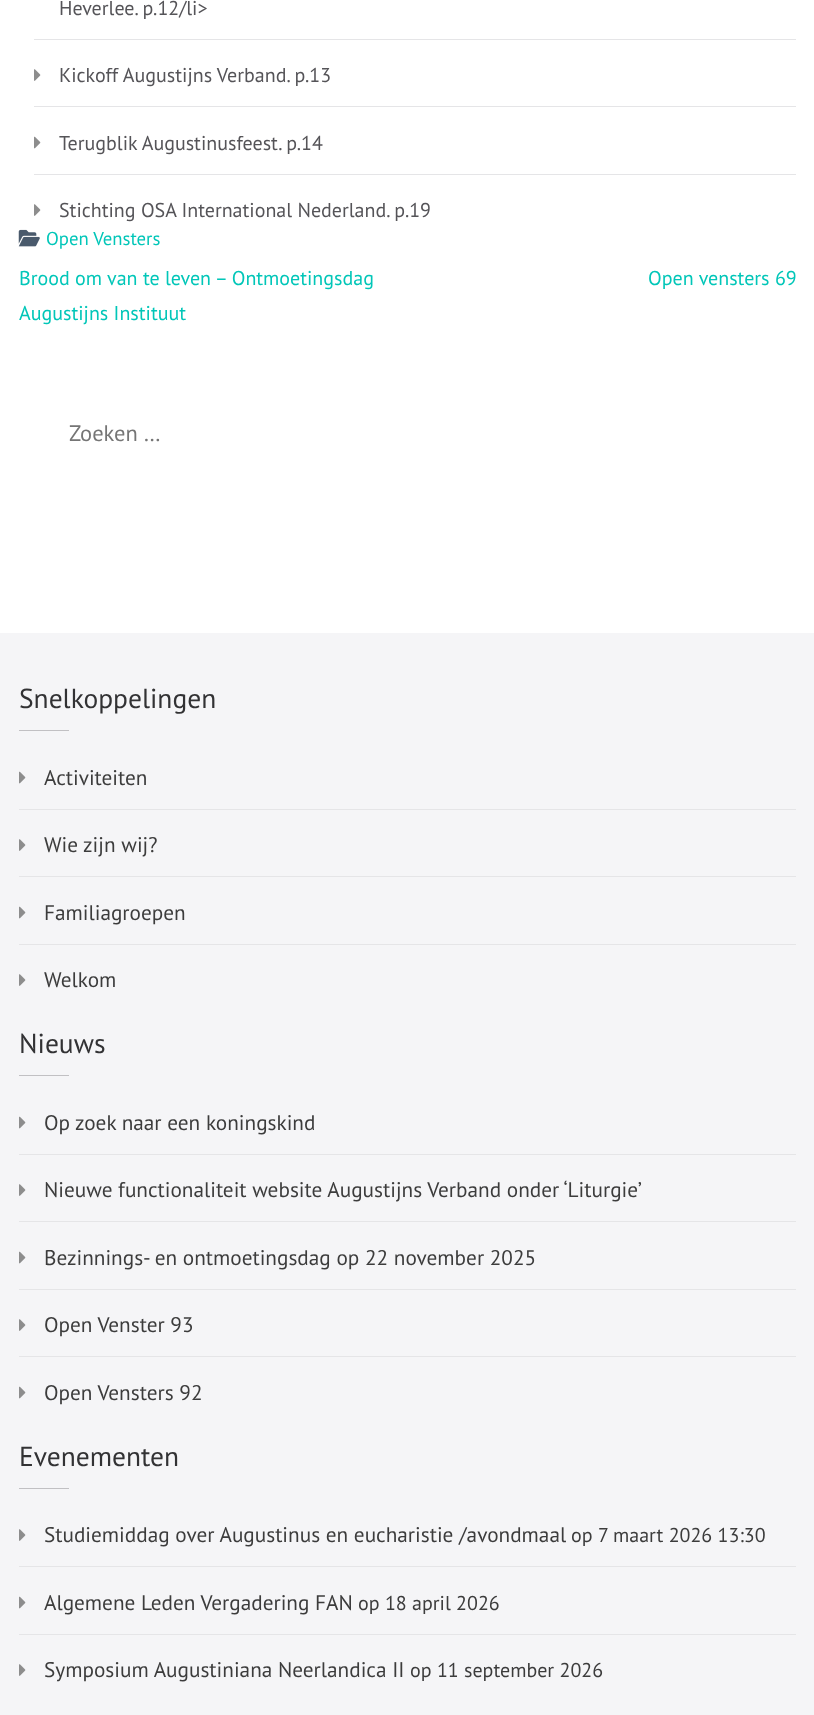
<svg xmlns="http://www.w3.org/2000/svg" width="814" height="1715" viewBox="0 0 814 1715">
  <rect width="100%" height="100%" fill="#fff"/>
  <path d="M34 39h762v1H34z" fill="#e5e5e7"/>
  <path d="M34 106h762v1H34z" fill="#e5e5e7"/>
  <image x="34" y="69" width="7" height="12" href="img/1.png"/>
  <path d="M34 174h762v1H34z" fill="#e5e5e7"/>
  <image x="34" y="136" width="7" height="13" href="img/2.png"/>
  <image x="34" y="204" width="7" height="12" href="img/1.png"/>
  <image x="18" y="229" width="22" height="18" href="img/3.png"/>
  <path d="M0 633h814v1082H0z" fill="#f5f5f7"/>
  <path d="M19 730h50v1H19z" fill="#c1c0c3"/>
  <path d="M19 809h777v1H19z" fill="#e5e5e7"/>
  <image x="19" y="771" width="7" height="13" href="img/4.png"/>
  <path d="M19 876h777v1H19z" fill="#e5e5e7"/>
  <image x="19" y="839" width="7" height="12" href="img/5.png"/>
  <path d="M19 944h777v1H19z" fill="#e5e5e7"/>
  <image x="19" y="906" width="7" height="13" href="img/4.png"/>
  <image x="19" y="974" width="7" height="12" href="img/5.png"/>
  <path d="M19 1075h50v1H19z" fill="#c1c0c3"/>
  <path d="M19 1154h777v1H19z" fill="#e5e5e7"/>
  <image x="19" y="1116" width="7" height="13" href="img/4.png"/>
  <path d="M19 1221h777v1H19z" fill="#e5e5e7"/>
  <image x="19" y="1184" width="7" height="12" href="img/5.png"/>
  <path d="M19 1289h777v1H19z" fill="#e5e5e7"/>
  <image x="19" y="1251" width="7" height="13" href="img/4.png"/>
  <path d="M19 1356h777v1H19z" fill="#e5e5e7"/>
  <image x="19" y="1319" width="7" height="12" href="img/5.png"/>
  <image x="19" y="1386" width="7" height="13" href="img/4.png"/>
  <path d="M19 1488h50v1H19z" fill="#c1c0c3"/>
  <path d="M19 1566h777v1H19z" fill="#e5e5e7"/>
  <image x="19" y="1529" width="7" height="12" href="img/5.png"/>
  <path d="M19 1634h777v1H19z" fill="#e5e5e7"/>
  <image x="19" y="1596" width="7" height="13" href="img/4.png"/>
  <image x="19" y="1664" width="7" height="12" href="img/5.png"/>
  <g font-family="PT Sans" font-size="20" fill="#555458">
    <text x="59" y="15">Heverlee. p.12/li&gt;</text>
    <text x="59" y="82">Kickoff Augustijns Verband. p.13</text>
    <text x="59" y="150">Terugblik Augustinusfeest. p.14</text>
    <text x="59" y="217">Stichting OSA International Nederland. p.19</text>
  </g>
  <text x="46" y="245" font-family="PT Sans" font-size="18.75" fill="#01c6b8">Open Vensters</text>
  <g font-family="PT Sans" font-size="20" fill="#01c6b8">
    <text x="19" y="285">Brood om van te leven – Ontmoetingsdag</text>
    <text x="19" y="320">Augustijns Instituut</text>
    <text x="648" y="285">Open vensters 69</text>
  </g>
  <text x="69" y="441" font-family="PT Sans" font-size="22.5" fill="#757575">Zoeken …</text>
  <text x="19" y="708" font-family="PT Sans" font-size="27.5" fill="#323234">Snelkoppelingen</text>
  <g font-family="PT Sans" font-size="21.25" fill="#3c3c3c">
    <text x="44" y="785">Activiteiten</text>
    <text x="44" y="852">Wie zijn wij?</text>
    <text x="44" y="920">Familiagroepen</text>
    <text x="44" y="987">Welkom</text>
  </g>
  <text x="19" y="1053" font-family="PT Sans" font-size="27.5" fill="#323234">Nieuws</text>
  <g font-family="PT Sans" font-size="21.25" fill="#3c3c3c">
    <text x="44" y="1130">Op zoek naar een koningskind</text>
    <text x="44" y="1197">Nieuwe functionaliteit website Augustijns Verband onder ‘Liturgie’</text>
    <text x="44" y="1265">Bezinnings- en ontmoetingsdag op 22 november 2025</text>
    <text x="44" y="1332">Open Venster 93</text>
    <text x="44" y="1400">Open Vensters 92</text>
  </g>
  <text x="19" y="1466" font-family="PT Sans" font-size="27.5" fill="#323234">Evenementen</text>
  <text x="44" y="1542" font-family="PT Sans" font-size="21.25" fill="#3c3c3c">Studiemiddag over Augustinus en eucharistie /avondmaal</text>
  <text x="571" y="1542" font-family="PT Sans" font-size="20" fill="#3c3c3c">op 7 maart 2026 13:30</text>
  <text x="44" y="1610" font-family="PT Sans" font-size="21.25" fill="#3c3c3c">Algemene Leden Vergadering FAN</text>
  <text x="358" y="1610" font-family="PT Sans" font-size="20" fill="#3c3c3c">op 18 april 2026</text>
  <text x="44" y="1677" font-family="PT Sans" font-size="21.25" fill="#3c3c3c">Symposium Augustiniana Neerlandica II</text>
  <text x="410" y="1677" font-family="PT Sans" font-size="20" fill="#3c3c3c">op 11 september 2026</text>
</svg>
